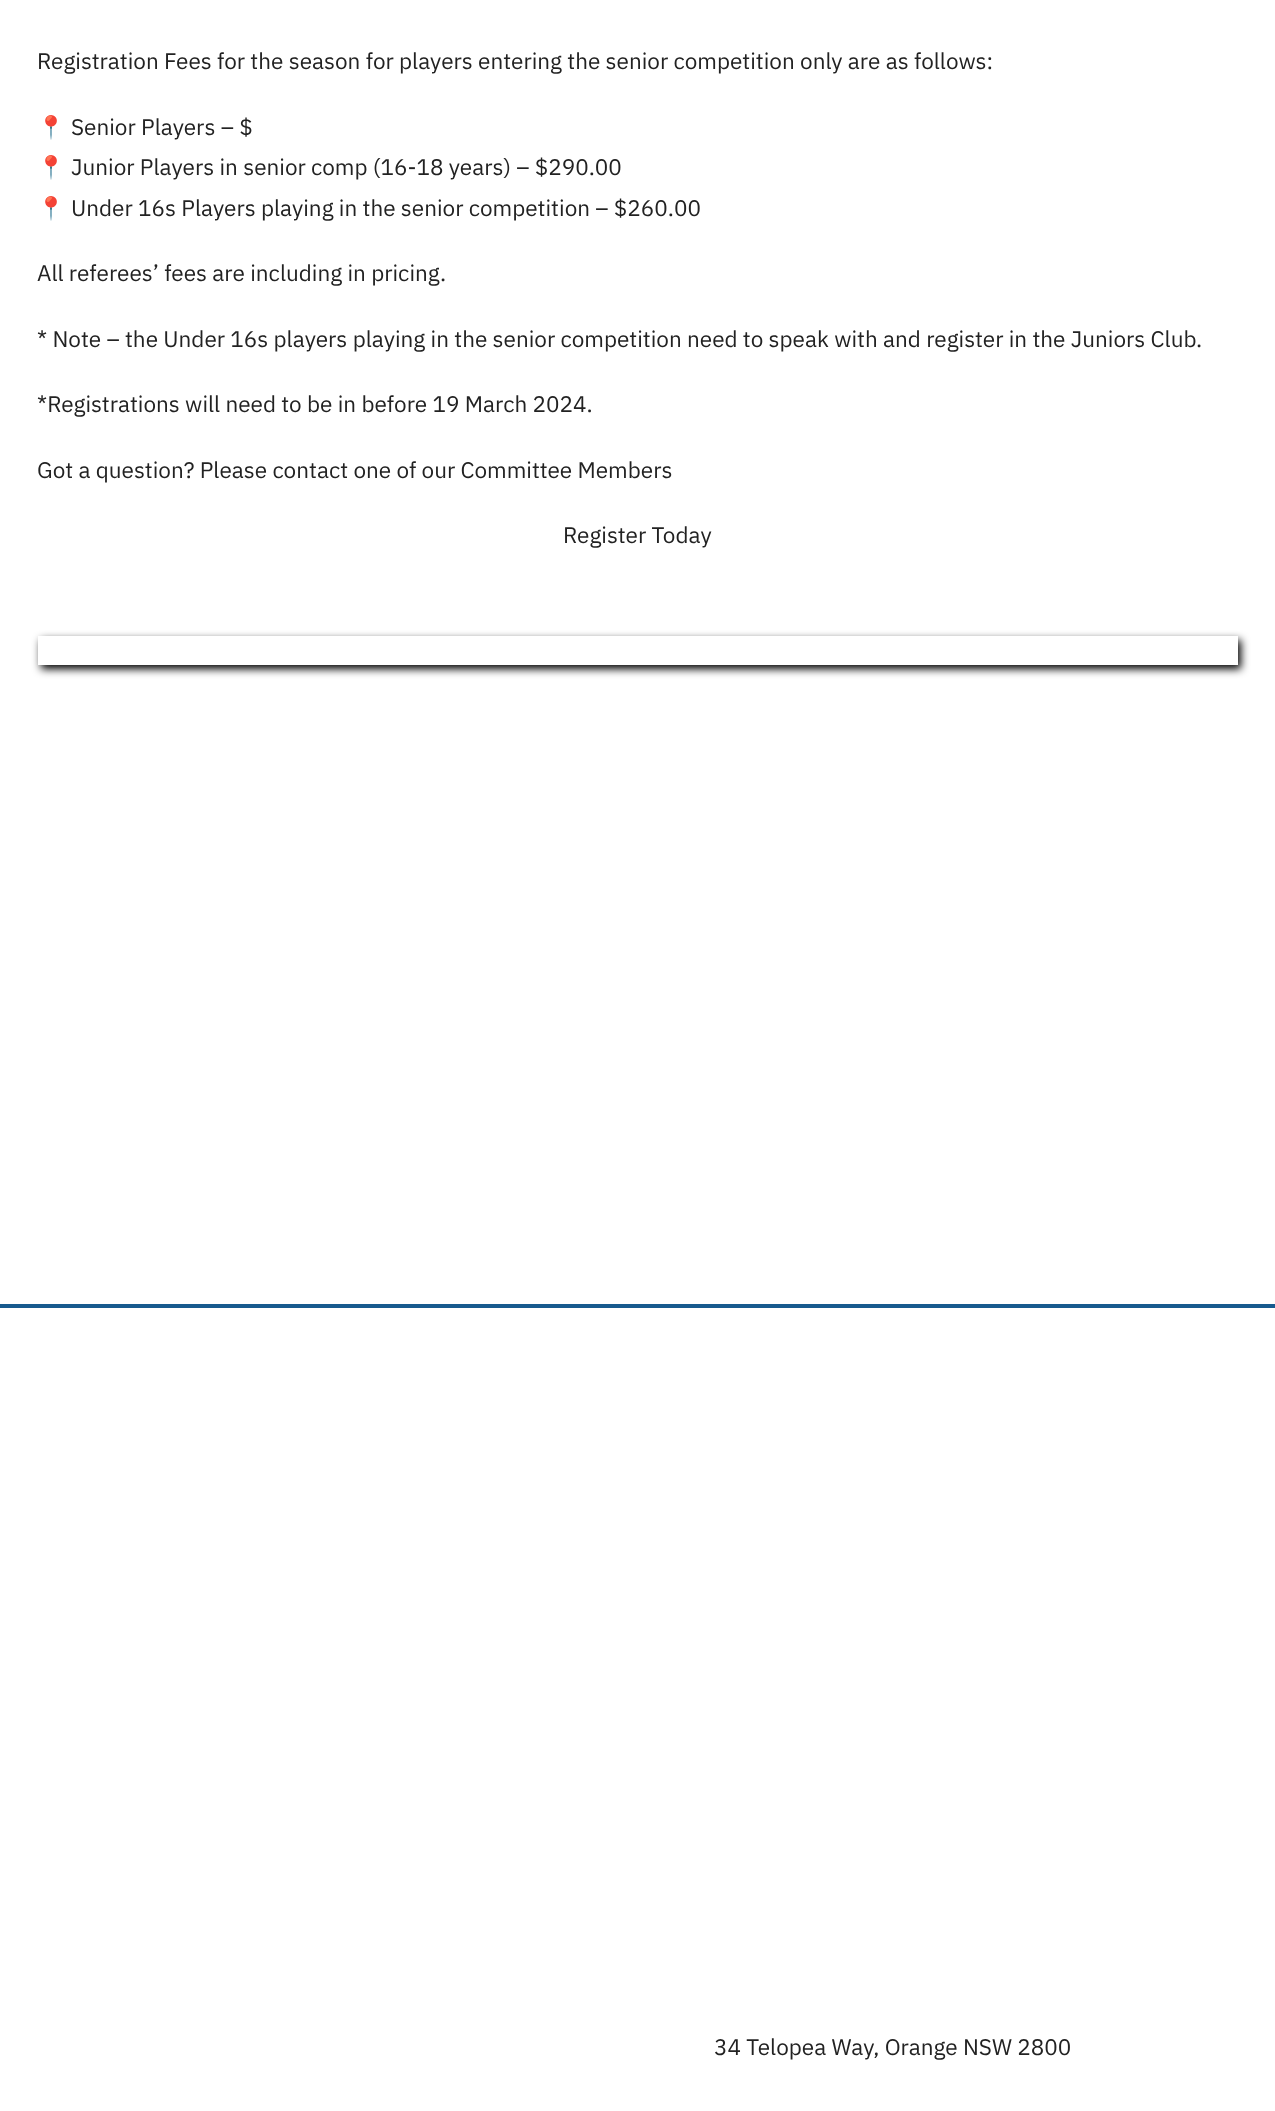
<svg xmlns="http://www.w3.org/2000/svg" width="1275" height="2111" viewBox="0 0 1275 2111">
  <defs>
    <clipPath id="clip1"><path d="M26 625H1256V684H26ZM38 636H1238V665H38Z" clip-rule="evenodd"/></clipPath>
  </defs>
  <rect width="100%" height="100%" fill="#fff"/>
  <g clip-path="url(#clip1)">
    <path d="M41 640h1200v29H41z" fill="#000" filter="blur(4.5px)"/>
  </g>
  <path d="M0 1304h1275v4H0z" fill="#175a8e"/>
  <text x="37" y="69" font-family="IBM Plex Sans" font-size="22.5" fill="#222">Registration Fees for the season for players entering the senior competition only are as follows:</text>
  <text x="37" y="135" font-family="Noto Color Emoji" font-size="22.5" fill="#222">📍</text>
  <text x="71" y="135" font-family="IBM Plex Sans" font-size="22.5" fill="#222">Senior Players – $</text>
  <text x="37" y="175" font-family="Noto Color Emoji" font-size="22.5" fill="#222">📍</text>
  <text x="71" y="175" font-family="IBM Plex Sans" font-size="22.5" fill="#222">Junior Players in senior comp (16-18 years) – $290.00</text>
  <text x="37" y="216" font-family="Noto Color Emoji" font-size="22.5" fill="#222">📍</text>
  <g font-family="IBM Plex Sans" font-size="22.5" fill="#222">
    <text x="71" y="216">Under 16s Players playing in the senior competition – $260.00</text>
    <text x="37" y="281">All referees’ fees are including in pricing.</text>
    <text x="37" y="347">* Note – the Under 16s players playing in the senior competition need to speak with and register in the Juniors Club.</text>
    <text x="37" y="412">*Registrations will need to be in before 19 March 2024.</text>
    <text x="37" y="478">Got a question? Please contact one of our Committee Members</text>
    <text x="563" y="543">Register Today</text>
    <text x="714" y="2055">34 Telopea Way, Orange NSW 2800</text>
  </g>
</svg>
